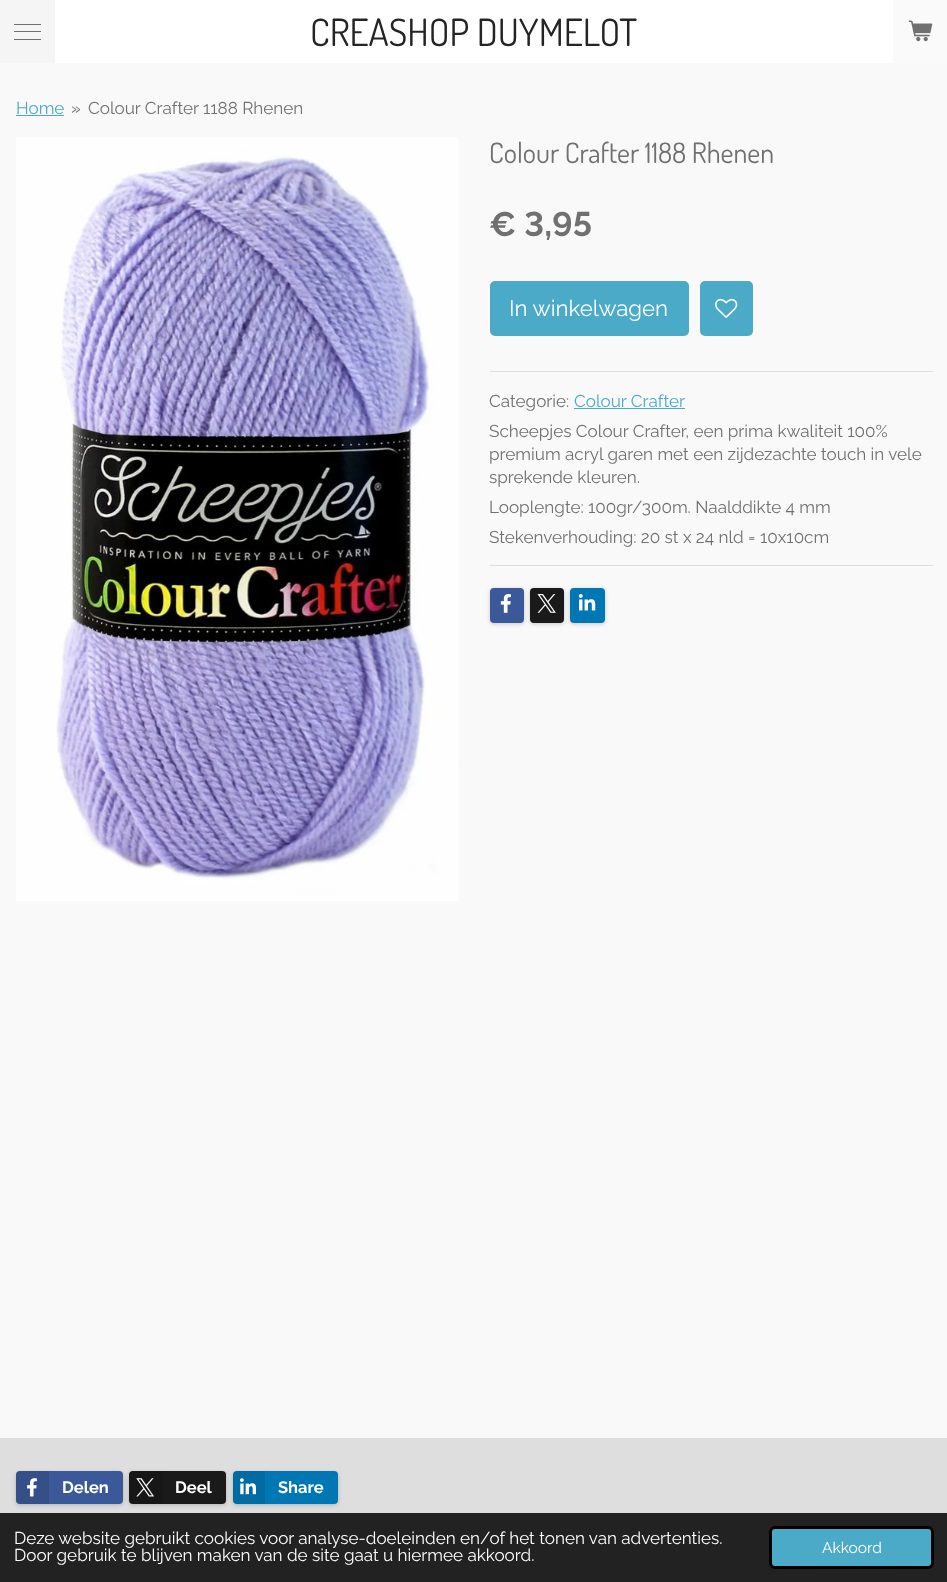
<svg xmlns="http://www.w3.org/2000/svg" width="947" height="1582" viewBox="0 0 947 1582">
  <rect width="100%" height="100%" fill="#fff"/>
  <path d="M0 0h55v63H0z" fill="#f5f5f5"/>
  <path d="M14 31h27v1H14z" fill="#707070"/>
  <path d="M14 24h27v1H14z" fill="#707070"/>
  <path d="M14 39h27v1H14z" fill="#707070"/>
  <path d="M893 0h54v63H893z" fill="#fafafa"/>
  <image x="908" y="20" width="25" height="22" href="img/1.png"/>
  <path d="M0 63h947v1375H0z" fill="#f9f9f9"/>
  <path d="M16 115h48v1H16z" fill="#4caac9"/>
  <image x="16" y="137" width="443" height="764" href="img/2.png"/>
  <rect x="490" y="281" width="199" height="55" rx="5" fill="#4caac9"/>
  <rect x="700" y="281" width="53" height="55" rx="5" fill="#4caac9"/>
  <image x="715" y="298" width="23" height="20" href="img/3.png"/>
  <path d="M490 371h443v1H490z" fill="#dedede"/>
  <path d="M574 408h111v1H574z" fill="#4caac9"/>
  <path d="M490 565h443v1H490z" fill="#dedede"/>
  <rect x="490" y="589" width="34" height="35" rx="4" fill="#00000033" filter="blur(2px)"/>
  <rect x="490" y="588" width="34" height="35" rx="4" fill="#3b5998"/>
  <image x="500" y="594" width="11" height="19" href="img/4.png"/>
  <rect x="530" y="589" width="34" height="35" rx="4" fill="#00000033" filter="blur(2px)"/>
  <rect x="530" y="588" width="34" height="35" rx="4" fill="#1a1a1a"/>
  <image x="537" y="594" width="19" height="19" href="img/5.png"/>
  <rect x="570" y="589" width="35" height="35" rx="4" fill="#00000033" filter="blur(2px)"/>
  <rect x="570" y="588" width="35" height="35" rx="4" fill="#0077b5"/>
  <image x="578" y="594" width="18" height="17" href="img/6.png"/>
  <path d="M0 1438h947v75H0z" fill="#dedede"/>
  <rect x="16" y="1473" width="107" height="32" rx="4" fill="#00000033" filter="blur(2px)"/>
  <rect x="16" y="1471" width="107" height="33" rx="4" fill="#3b5998"/>
  <path d="M20 1471H49V1504H20C18 1504 16 1502 16 1500V1475C16 1473 18 1471 20 1471Z" fill="#0000001a"/>
  <image x="27" y="1478" width="10" height="19" href="img/7.png"/>
  <rect x="129" y="1473" width="97" height="32" rx="4" fill="#00000033" filter="blur(2px)"/>
  <rect x="129" y="1471" width="97" height="33" rx="4" fill="#1a1a1a"/>
  <path d="M133 1471H163V1504H133C131 1504 129 1502 129 1500V1475C129 1473 131 1471 133 1471Z" fill="#0000001a"/>
  <image x="136" y="1478" width="18" height="19" href="img/8.png"/>
  <rect x="233" y="1473" width="105" height="32" rx="4" fill="#00000033" filter="blur(2px)"/>
  <rect x="233" y="1471" width="105" height="33" rx="4" fill="#0077b5"/>
  <path d="M237 1471H265V1504H237C235 1504 233 1502 233 1500V1475C233 1473 235 1471 237 1471Z" fill="#0000001a"/>
  <image x="240" y="1478" width="16" height="17" href="img/9.png"/>
  <path d="M0 1513h947v69H0z" fill="#222"/>
  <rect x="770.5" y="1527.5" width="162" height="40" rx="4.5" fill="#4caac9" stroke="#000" stroke-width="3"/>
  <text x="310" y="46" font-family="Dosis" font-size="37.5" fill="#242424">CREASHOP DUYMELOT</text>
  <text x="16" y="114" font-family="Raleway" font-size="17.1" fill="#4caac9">Home</text>
  <g font-family="Raleway" font-size="17.1" fill="#707070">
    <text x="71" y="114">»</text>
    <text x="88" y="114">Colour Crafter 1188 Rhenen</text>
  </g>
  <text x="489" y="163" font-family="Dosis" font-size="28.1" fill="#707070">Colour Crafter 1188 Rhenen</text>
  <text x="489" y="236" font-family="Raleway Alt" font-size="34" font-weight="bold" fill="#707070">€ 3,95</text>
  <text x="509" y="316" font-family="Raleway" font-size="22.25" fill="#fff">In winkelwagen</text>
  <text x="489" y="407" font-family="Raleway" font-size="17.1" fill="#707070">Categorie:</text>
  <text x="574" y="407" font-family="Raleway" font-size="17.1" fill="#4caac9">Colour Crafter</text>
  <g font-family="Raleway" font-size="17.1" fill="#707070">
    <text x="489" y="437">Scheepjes Colour Crafter, een prima kwaliteit 100%</text>
    <text x="489" y="460">premium acryl garen met een zijdezachte touch in vele</text>
    <text x="489" y="483">sprekende kleuren.</text>
    <text x="489" y="513">Looplengte: 100gr/300m. Naalddikte 4 mm</text>
    <text x="489" y="543">Stekenverhouding: 20 st x 24 nld = 10x10cm</text>
  </g>
  <g font-family="Raleway" font-size="16.5" font-weight="bold" fill="#fff">
    <text x="62" y="1493">Delen</text>
    <text x="175" y="1493">Deel</text>
    <text x="278" y="1493">Share</text>
  </g>
  <g font-family="Raleway" font-size="17.1" fill="#fff">
    <text x="14" y="1544">Deze website gebruikt cookies voor analyse-doeleinden en/of het tonen van advertenties.</text>
    <text x="14" y="1561">Door gebruik te blijven maken van de site gaat u hiermee akkoord.</text>
  </g>
  <text x="822" y="1553" font-family="Raleway" font-size="15.5" fill="#fff">Akkoord</text>
</svg>
